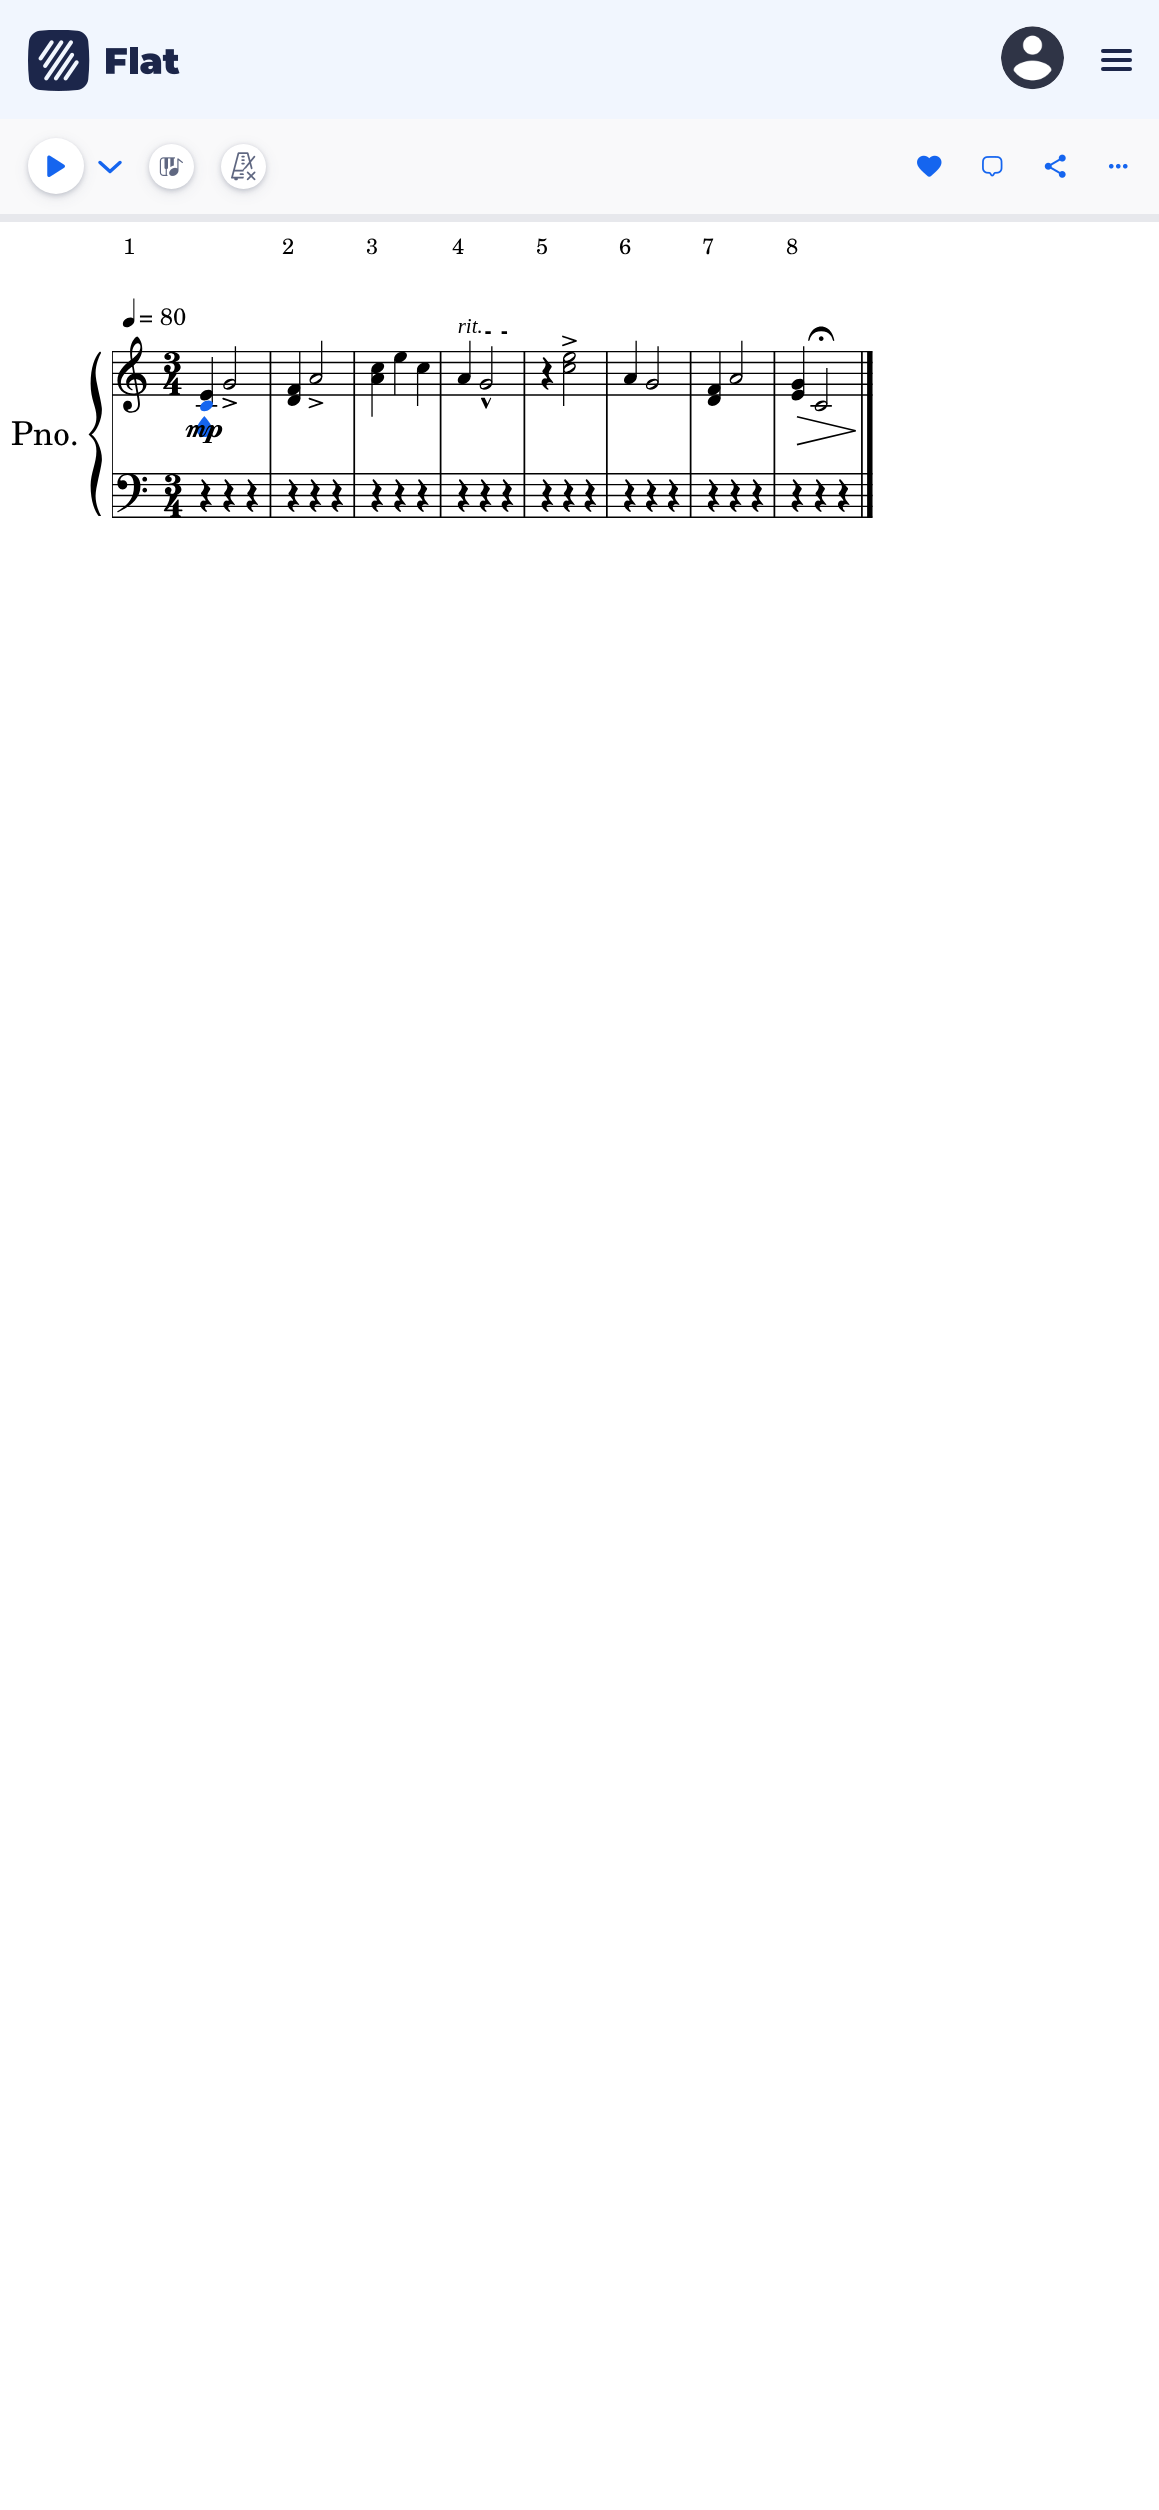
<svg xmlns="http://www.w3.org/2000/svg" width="1159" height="2510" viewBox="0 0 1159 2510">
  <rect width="100%" height="100%" fill="#fff"/>
  <path d="M0 0h1159v119H0z" fill="#f1f6fe"/>
  <image x="28" y="30" width="152" height="61" href="img/1.png"/>
  <circle cx="1032.5" cy="57.5" r="31.5" fill="#fff"/>
  <image x="1001" y="26" width="63" height="64" href="img/2.png"/>
  <rect x="1101" y="49" width="31" height="4" rx="2" fill="#1c264a"/>
  <rect x="1101" y="58" width="31" height="4" rx="2" fill="#1c264a"/>
  <rect x="1101" y="67" width="31" height="4" rx="2" fill="#1c264a"/>
  <path d="M0 119h1159v95H0z" fill="#f9f9fa"/>
  <rect x="28" y="140" width="56" height="56" rx="28" fill="#28304f33" filter="blur(2.5px)"/>
  <rect x="28" y="142" width="56" height="56" rx="28" fill="#28304f1a" filter="blur(7px)"/>
  <circle cx="56" cy="166" r="28" fill="#fff"/>
  <image x="47" y="155" width="18" height="22" href="img/3.png"/>
  <path d="M100 162.5L110 171.5L120 162.5" fill="none" stroke="#1565ef" stroke-width="3.5" stroke-linecap="round" stroke-linejoin="round"/>
  <rect x="149" y="145" width="45" height="46" rx="22.5" fill="#28304f33" filter="blur(2.5px)"/>
  <rect x="149" y="147" width="45" height="46" rx="22.5" fill="#28304f1a" filter="blur(7px)"/>
  <circle cx="171.5" cy="166.5" r="22.5" fill="#fff"/>
  <image x="159" y="157" width="24" height="19" href="img/4.png"/>
  <rect x="221" y="145" width="45" height="46" rx="22.5" fill="#28304f33" filter="blur(2.5px)"/>
  <rect x="221" y="147" width="45" height="46" rx="22.5" fill="#28304f1a" filter="blur(7px)"/>
  <circle cx="243.5" cy="166.5" r="22.5" fill="#fff"/>
  <image x="231" y="152" width="25" height="29" href="img/5.png"/>
  <image x="917" y="155" width="25" height="22" href="img/6.png"/>
  <image x="982" y="156" width="21" height="21" href="img/7.png"/>
  <image x="1044" y="154" width="22" height="24" href="img/8.png"/>
  <image x="1108" y="163" width="20" height="6" href="img/9.png"/>
  <path d="M0 214h1159v8H0z" fill="#e7e8ec"/>
  <image x="112" y="298" width="761" height="220" href="img/10.png"/>
  <image x="88" y="351" width="14" height="165" href="img/11.png"/>
  <g font-family="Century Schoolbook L" font-size="22" fill="#000">
    <text x="123" y="254">1</text>
    <text x="282" y="254">2</text>
    <text x="366" y="254">3</text>
    <text x="452" y="254">4</text>
    <text x="536" y="254">5</text>
    <text x="619" y="254">6</text>
    <text x="702" y="254">7</text>
    <text x="786" y="254">8</text>
  </g>
  <text x="11" y="445" font-family="Century Schoolbook L" font-size="33" fill="#000">Pno.</text>
</svg>
